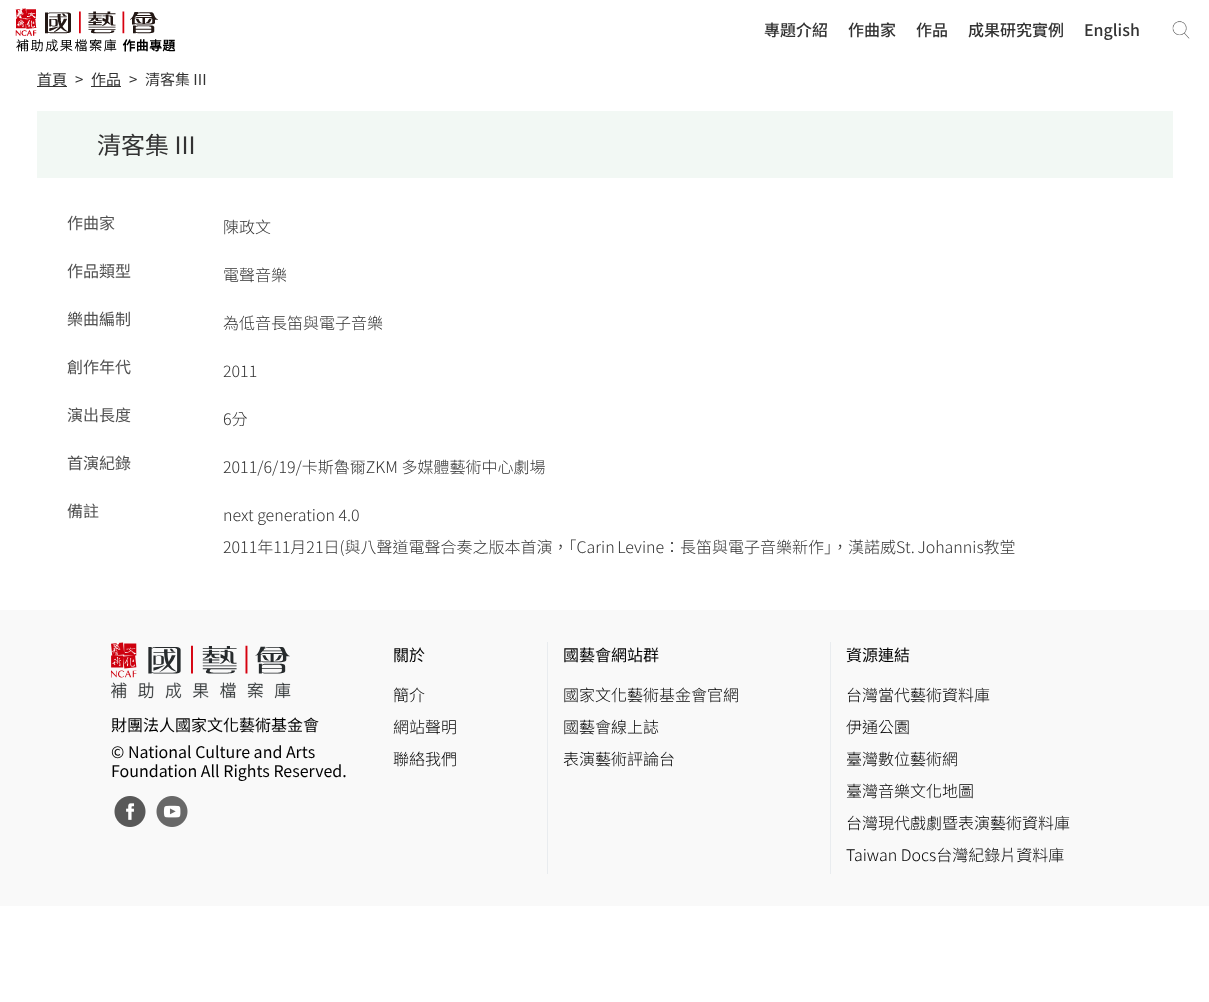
<svg xmlns="http://www.w3.org/2000/svg" width="1209" height="1002" viewBox="0 0 1209 1002">
  <rect width="100%" height="100%" fill="#fff"/>
  <image x="15" y="8" width="161" height="44" href="img/1.png"/>
  <image x="1172" y="21" width="18" height="18" href="img/2.png"/>
  <path d="M37 86h30v1H37z" fill="#333"/>
  <path d="M91 86h30v1H91z" fill="#333"/>
  <path d="M37 111h1136v67H37z" fill="#f2f8f4"/>
  <path d="M0 610h1209v296H0z" fill="#f9f9f9"/>
  <image x="111" y="642" width="180" height="57" href="img/3.png"/>
  <image x="114" y="796" width="32" height="31" href="img/4.png"/>
  <image x="156" y="796" width="32" height="31" href="img/5.png"/>
  <path d="M547 642h1v232H547z" fill="#e9ecef"/>
  <path d="M830 642h1v232H830z" fill="#e9ecef"/>
  <g font-family="Noto Sans TC" font-size="16" font-weight="500" fill="#333">
    <text x="764" y="36">專題介紹</text>
    <text x="848" y="36">作曲家</text>
    <text x="916" y="36">作品</text>
    <text x="968" y="36">成果研究實例</text>
    <text x="1084" y="36">English</text>
  </g>
  <g font-family="Noto Sans TC" font-size="15" fill="#333">
    <text x="37" y="85">首頁</text>
    <text x="75" y="85">&gt;</text>
    <text x="91" y="85">作品</text>
    <text x="129" y="85">&gt;</text>
    <text x="145" y="85">清客集 III</text>
  </g>
  <text x="97" y="154" font-family="Noto Sans TC" font-size="24" fill="#333">清客集 III</text>
  <text x="67" y="229" font-family="Noto Sans TC" font-size="16" fill="#515151">作曲家</text>
  <text x="223" y="233" font-family="Noto Sans TC" font-size="16" font-weight="300" fill="#333">陳政文</text>
  <text x="67" y="277" font-family="Noto Sans TC" font-size="16" fill="#515151">作品類型</text>
  <text x="223" y="281" font-family="Noto Sans TC" font-size="16" font-weight="300" fill="#333">電聲音樂</text>
  <text x="67" y="325" font-family="Noto Sans TC" font-size="16" fill="#515151">樂曲編制</text>
  <text x="223" y="329" font-family="Noto Sans TC" font-size="16" font-weight="300" fill="#333">為低音長笛與電子音樂</text>
  <text x="67" y="373" font-family="Noto Sans TC" font-size="16" fill="#515151">創作年代</text>
  <text x="223" y="377" font-family="Noto Sans TC" font-size="16" font-weight="300" fill="#333">2011</text>
  <text x="67" y="421" font-family="Noto Sans TC" font-size="16" fill="#515151">演出長度</text>
  <text x="223" y="425" font-family="Noto Sans TC" font-size="16" font-weight="300" fill="#333">6分</text>
  <text x="67" y="469" font-family="Noto Sans TC" font-size="16" fill="#515151">首演紀錄</text>
  <text x="223" y="473" font-family="Noto Sans TC" font-size="16" font-weight="300" fill="#333">2011/6/19/卡斯魯爾ZKM 多媒體藝術中心劇場</text>
  <text x="67" y="517" font-family="Noto Sans TC" font-size="16" fill="#515151">備註</text>
  <g font-family="Noto Sans TC" font-size="16" font-weight="300" fill="#333">
    <text x="223" y="521">next generation 4.0</text>
    <text x="223" y="553" word-spacing="-1">2011年11月21日(與八聲道電聲合奏之版本首演，「Carin Levine：長笛與電子音樂新作」，漢諾威St. Johannis教堂</text>
  </g>
  <g font-family="Noto Sans TC" font-size="16" fill="#000">
    <text x="111" y="731">財團法人國家文化藝術基金會</text>
    <text x="111" y="758">© National Culture and Arts</text>
    <text x="111" y="777">Foundation All Rights Reserved.</text>
    <text x="393" y="661">關於</text>
  </g>
  <g font-family="Noto Sans TC" font-size="16" font-weight="300" fill="#000">
    <text x="393" y="701">簡介</text>
    <text x="393" y="733">網站聲明</text>
    <text x="393" y="765">聯絡我們</text>
  </g>
  <text x="563" y="661" font-family="Noto Sans TC" font-size="16" fill="#000">國藝會網站群</text>
  <g font-family="Noto Sans TC" font-size="16" font-weight="300" fill="#000">
    <text x="563" y="701">國家文化藝術基金會官網</text>
    <text x="563" y="733">國藝會線上誌</text>
    <text x="563" y="765">表演藝術評論台</text>
  </g>
  <text x="846" y="661" font-family="Noto Sans TC" font-size="16" fill="#000">資源連結</text>
  <g font-family="Noto Sans TC" font-size="16" font-weight="300" fill="#000">
    <text x="846" y="701">台灣當代藝術資料庫</text>
    <text x="846" y="733">伊通公園</text>
    <text x="846" y="765">臺灣數位藝術網</text>
    <text x="846" y="797">臺灣音樂文化地圖</text>
    <text x="846" y="829">台灣現代戲劇暨表演藝術資料庫</text>
    <text x="846" y="861">Taiwan Docs台灣紀錄片資料庫</text>
  </g>
</svg>
